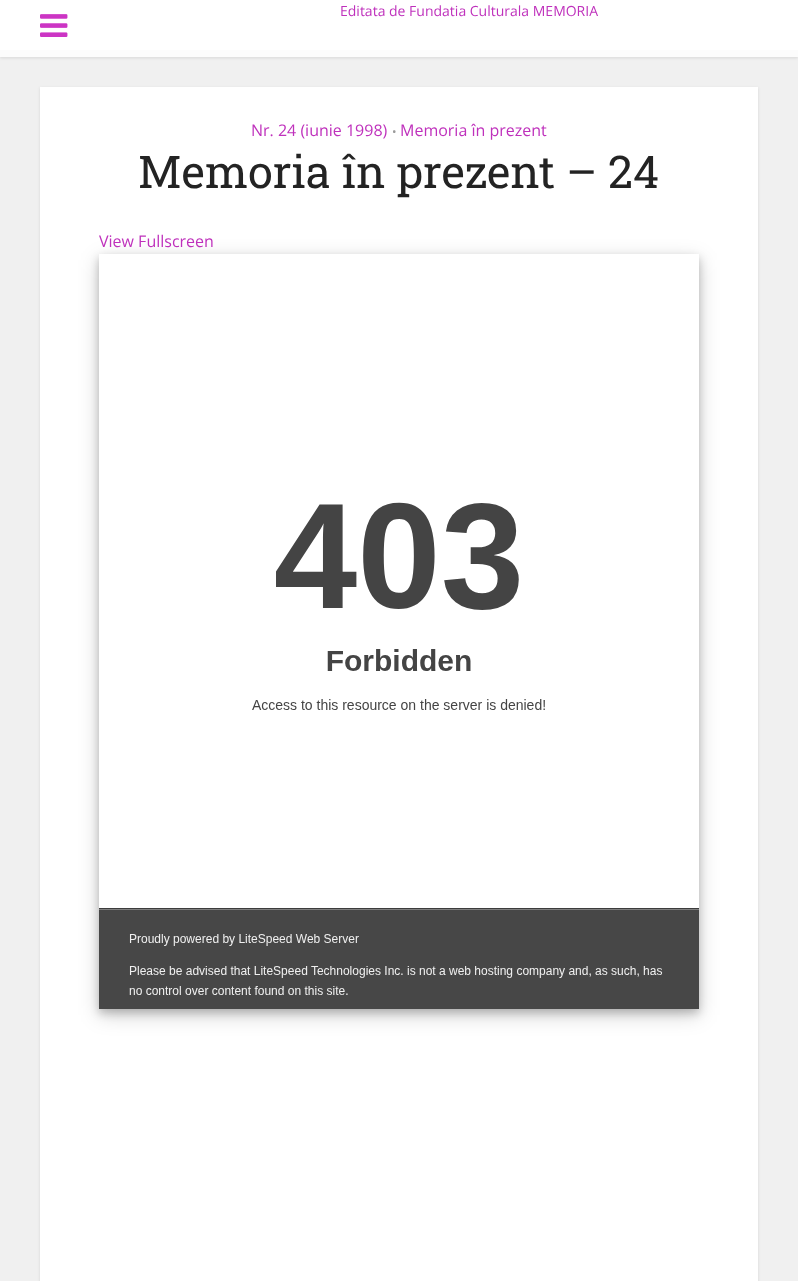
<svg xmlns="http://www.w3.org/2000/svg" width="798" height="1281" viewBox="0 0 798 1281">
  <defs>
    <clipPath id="clip1"><path d="M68 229H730V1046H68ZM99 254H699V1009H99Z" clip-rule="evenodd"/></clipPath>
    <clipPath id="clip2"><path d="M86 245H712V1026H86ZM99 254H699V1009H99Z" clip-rule="evenodd"/></clipPath>
  </defs>
  <rect width="100%" height="100%" fill="#f0f0f0"/>
  <path d="M0 1h798v57H0z" fill="#0000001a" filter="blur(1.5px)"/>
  <path d="M0 0h798v50H0z" fill="#fff"/>
  <image x="40" y="14" width="28" height="23" href="img/1.png"/>
  <path d="M0 50h798v7H0z" fill="#fcfcfc"/>
  <path d="M40 88h718v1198H40z" fill="#0000001a" filter="blur(1.5px)"/>
  <path d="M40 87h718v1194H40z" fill="#fff"/>
  <g clip-path="url(#clip1)">
    <path d="M99 260h600v755H99z" fill="#00000030" filter="blur(10px)"/>
  </g>
  <g clip-path="url(#clip2)">
    <path d="M99 258h600v755H99z" fill="#00000033" filter="blur(4px)"/>
  </g>
  <image x="99" y="502" width="600" height="507" href="img/2.png"/>
  <text x="340" y="16" font-family="Open Sans" font-size="14" fill="#bf31bc">Editata de Fundatia Culturala MEMORIA</text>
  <text x="251" y="136" font-family="Open Sans" font-size="16" fill="#bf31bc">Nr. 24 (iunie 1998)</text>
  <text x="392" y="136" font-family="Open Sans" font-size="12" fill="#9b9b9b">•</text>
  <text x="400" y="136" font-family="Open Sans" font-size="16" fill="#bf31bc">Memoria în prezent</text>
  <text x="138" y="188" font-family="Roboto Slab" font-size="45" fill="#232323">Memoria în prezent – 24</text>
  <text x="99" y="247" font-family="Open Sans" font-size="16" fill="#bf31bc">View Fullscreen</text>
</svg>
